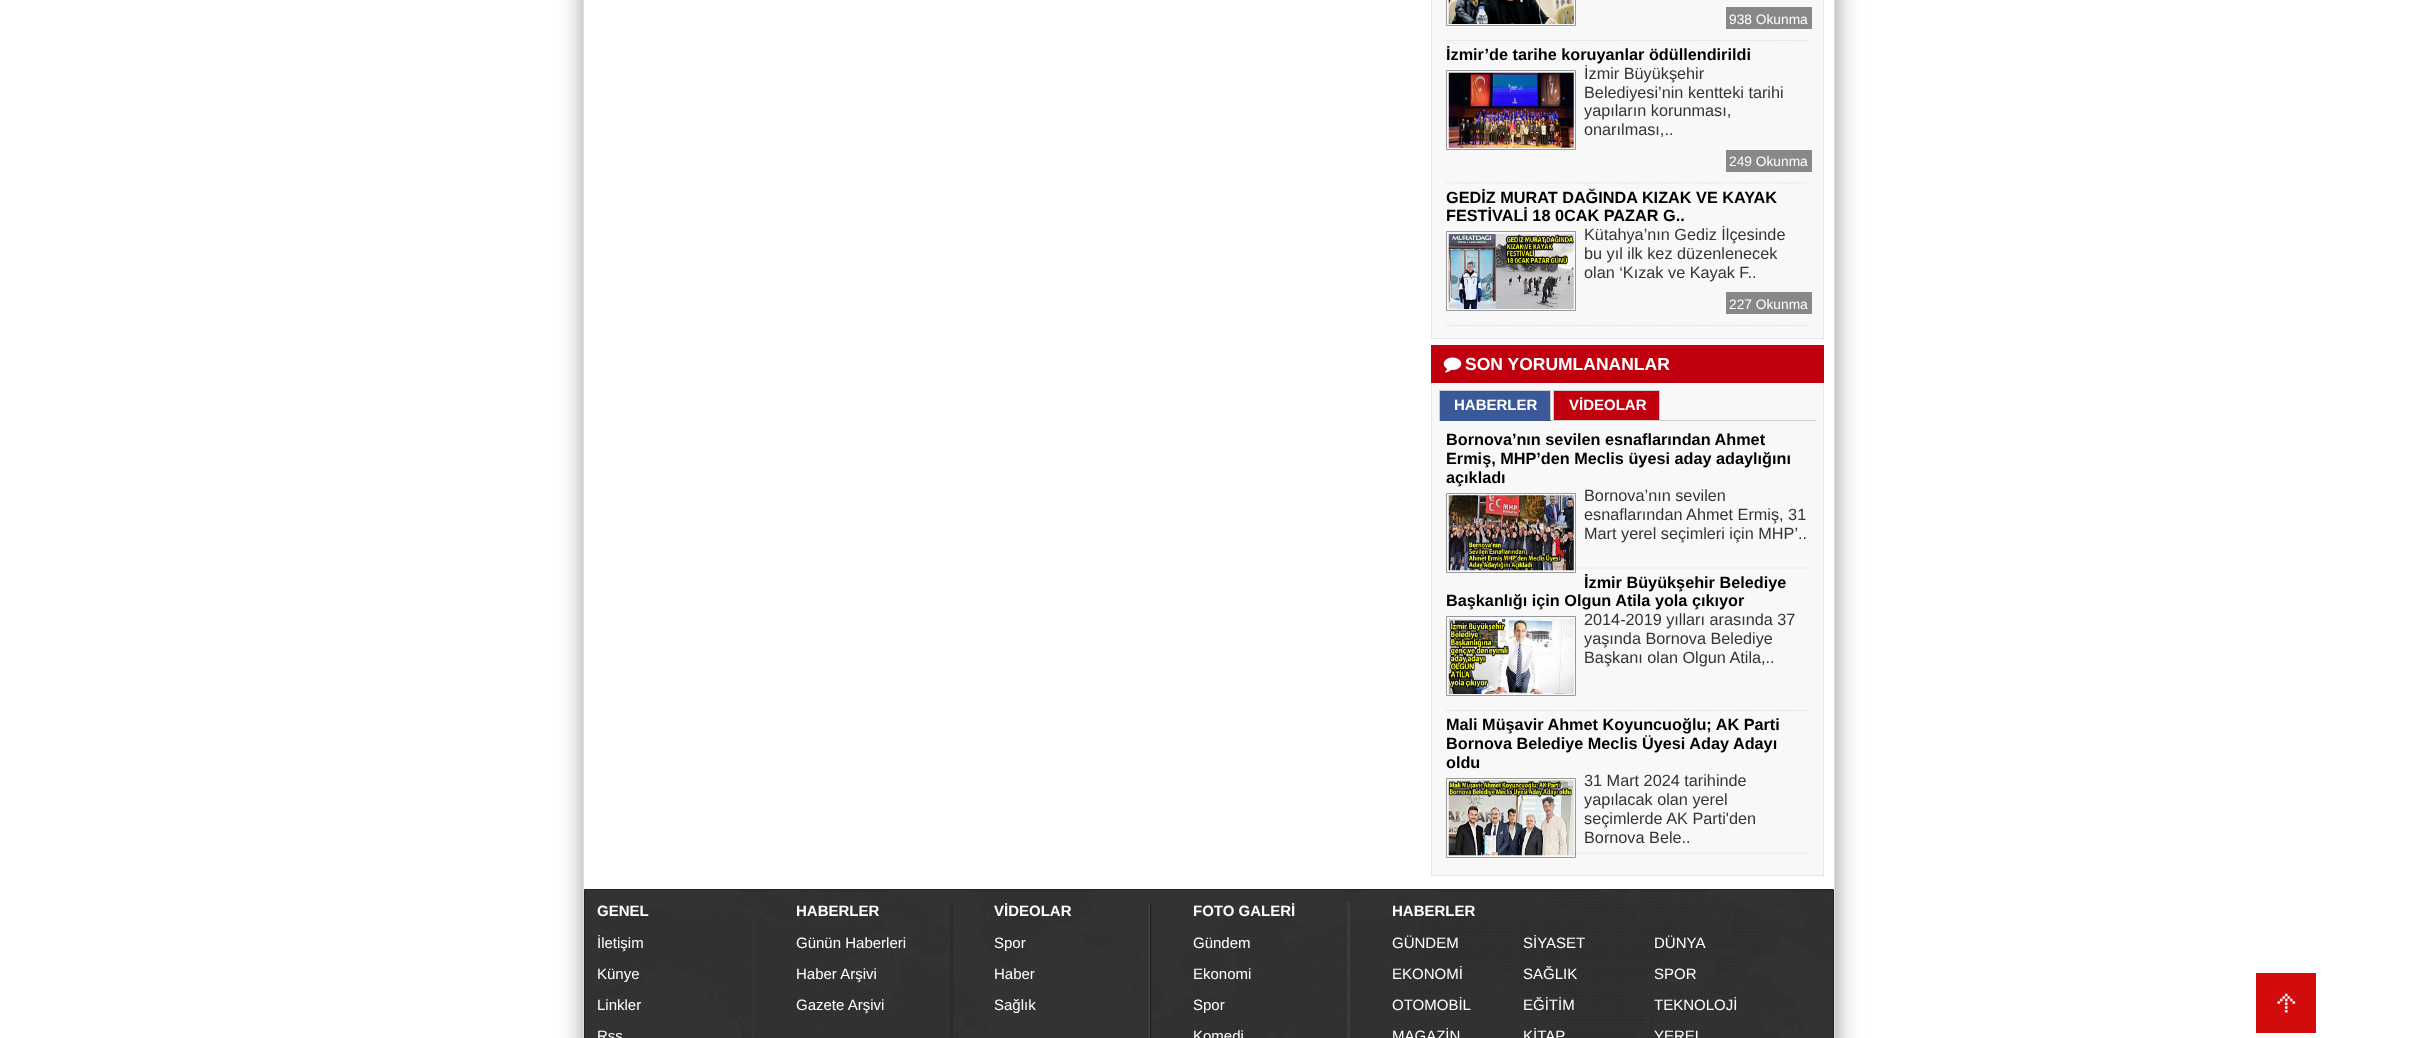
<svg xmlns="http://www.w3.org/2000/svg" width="2416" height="1038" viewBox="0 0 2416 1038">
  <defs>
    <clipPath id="clip1"><path d="M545 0H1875V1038H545ZM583-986H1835V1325H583Z" clip-rule="evenodd"/></clipPath>
  </defs>
  <rect width="100%" height="100%" fill="#fff"/>
  <g clip-path="url(#clip1)">
    <path d="M584 -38h1252v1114H584z" fill="#999" filter="blur(12.5px)"/>
  </g>
  <path d="M1834 0h1v1038H1834z" fill="#ddd"/>
  <path d="M583 0h1v1038H583z" fill="#ddd"/>
  <path d="M1432 0h391v338H1432z" fill="#f8f8f8"/>
  <path d="M1823 0h1v339H1823z" fill="#e5e5e5"/>
  <path d="M1431 338h393v1H1431z" fill="#e5e5e5"/>
  <path d="M1431 0h1v339H1431z" fill="#e5e5e5"/>
  <path d="M1446 40.5H1809" fill="none" stroke="#dadada" stroke-width="1.2" stroke-dasharray="1.25 1.25"/>
  <path d="M1446.5 -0.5h129v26H1446.5z" fill="none" stroke="#999"/>
  <image x="1448" y="0" width="126" height="24" href="img/1.png"/>
  <path d="M1726 7h86v22H1726z" fill="#888"/>
  <path d="M1446 183H1809" fill="none" stroke="#dadada" stroke-width="1.2" stroke-dasharray="1.25 1.25"/>
  <path d="M1446.5 70.5h129v79H1446.5z" fill="none" stroke="#999"/>
  <image x="1448" y="72" width="126" height="76" href="img/2.png"/>
  <path d="M1726 150h86v22H1726z" fill="#888"/>
  <path d="M1446 325.5H1809" fill="none" stroke="#dadada" stroke-width="1.2" stroke-dasharray="1.25 1.25"/>
  <path d="M1446.5 231.5h129v79H1446.5z" fill="none" stroke="#999"/>
  <image x="1448" y="234" width="126" height="75" href="img/3.png"/>
  <path d="M1726 292h86v22H1726z" fill="#888"/>
  <path d="M1431 345h393v38H1431z" fill="#c1000f"/>
  <image x="1443" y="357" width="19" height="16" href="img/4.png"/>
  <path d="M1432 383h391v492H1432z" fill="#f8f8f8"/>
  <path d="M1823 383h1v493H1823z" fill="#e5e5e5"/>
  <path d="M1431 875h393v1H1431z" fill="#e5e5e5"/>
  <path d="M1431 383h1v493H1431z" fill="#e5e5e5"/>
  <path d="M1440 391h110v29H1440z" fill="#3b5998"/>
  <path d="M1439 390h112v1H1439z" fill="#ccc"/>
  <path d="M1550 390h1v31H1550z" fill="#ccc"/>
  <path d="M1439 420h112v1H1439z" fill="#3b5998"/>
  <path d="M1439 390h1v31H1439z" fill="#ccc"/>
  <path d="M1551 420h265v1H1551z" fill="#ccc"/>
  <path d="M1553.5 390.5h106v30H1553.5z" fill="#c1000f" stroke="#ccc"/>
  <path d="M1446 568H1809" fill="none" stroke="#dadada" stroke-width="1.2" stroke-dasharray="1.25 1.25"/>
  <path d="M1446.5 493.5h129v79H1446.5z" fill="none" stroke="#999"/>
  <image x="1448" y="495" width="126" height="76" href="img/5.png"/>
  <path d="M1446 710.5H1809" fill="none" stroke="#dadada" stroke-width="1.2" stroke-dasharray="1.25 1.25"/>
  <path d="M1446.5 616.5h129v79H1446.5z" fill="none" stroke="#999"/>
  <image x="1448" y="619" width="126" height="75" href="img/6.png"/>
  <path d="M1446 853H1809" fill="none" stroke="#dadada" stroke-width="1.2" stroke-dasharray="1.25 1.25"/>
  <path d="M1446.5 778.5h129v79H1446.5z" fill="none" stroke="#999"/>
  <image x="1448" y="780" width="126" height="76" href="img/7.png"/>
  <path d="M585 890h1248v148H585z" fill="#333"/>
  <image x="590" y="890" width="1241" height="148" href="img/8.png"/>
  <path d="M584.5 889.5h1249v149H584.5z" fill="none" stroke="#222"/>
  <path d="M752 914h2v124H752z" fill="#333"/>
  <path d="M950 902h3v136H950z" fill="#2c2c2c"/>
  <image x="1148" y="903" width="4" height="135" href="img/9.png"/>
  <path d="M1347 902h3v136H1347z" fill="#3b3b3b"/>
  <path d="M2256 973h60v60H2256z" fill="#d20c0c"/>
  <image x="2277" y="993" width="19" height="20" href="img/10.png"/>
  <text x="1729" y="24" font-family="Liberation Sans" font-size="13.75" fill="#fff">938 Okunma</text>
  <text x="1446" y="60" font-family="Liberation Sans" font-size="16.25" font-weight="bold" fill="#000">İzmir’de tarihe koruyanlar ödüllendirildi</text>
  <g font-family="Liberation Sans" font-size="16.25" fill="#333">
    <text x="1584" y="79">İzmir Büyükşehir</text>
    <text x="1584" y="98">Belediyesi’nin kentteki tarihi</text>
    <text x="1584" y="116">yapıların korunması,</text>
    <text x="1584" y="135">onarılması,..</text>
  </g>
  <text x="1729" y="166" font-family="Liberation Sans" font-size="13.75" fill="#fff">249 Okunma</text>
  <g font-family="Liberation Sans" font-size="16.25" font-weight="bold" fill="#000">
    <text x="1446" y="203">GEDİZ MURAT DAĞINDA KIZAK VE KAYAK</text>
    <text x="1446" y="221">FESTİVALİ 18 0CAK PAZAR G..</text>
  </g>
  <g font-family="Liberation Sans" font-size="16.25" fill="#333">
    <text x="1584" y="240">Kütahya’nın Gediz İlçesinde</text>
    <text x="1584" y="259">bu yıl ilk kez düzenlenecek</text>
    <text x="1584" y="278">olan ‘Kızak ve Kayak F..</text>
  </g>
  <text x="1729" y="309" font-family="Liberation Sans" font-size="13.75" fill="#fff">227 Okunma</text>
  <text x="1465" y="370" font-family="Liberation Sans" font-size="17.5" font-weight="bold" fill="#fff">SON YORUMLANANLAR</text>
  <g font-family="Liberation Sans" font-size="15" font-weight="bold" fill="#fff">
    <text x="1454" y="410">HABERLER</text>
    <text x="1569" y="410">VİDEOLAR</text>
  </g>
  <g font-family="Liberation Sans" font-size="16.25" font-weight="bold" fill="#000">
    <text x="1446" y="445">Bornova’nın sevilen esnaflarından Ahmet</text>
    <text x="1446" y="464">Ermiş, MHP’den Meclis üyesi aday adaylığını</text>
    <text x="1446" y="483">açıkladı</text>
  </g>
  <g font-family="Liberation Sans" font-size="16.25" fill="#333">
    <text x="1584" y="501">Bornova’nın sevilen</text>
    <text x="1584" y="520">esnaflarından Ahmet Ermiş, 31</text>
    <text x="1584" y="539">Mart yerel seçimleri için MHP’..</text>
  </g>
  <g font-family="Liberation Sans" font-size="16.25" font-weight="bold" fill="#000">
    <text x="1584" y="588">İzmir Büyükşehir Belediye</text>
    <text x="1446" y="606">Başkanlığı için Olgun Atila yola çıkıyor</text>
  </g>
  <g font-family="Liberation Sans" font-size="16.25" fill="#333">
    <text x="1584" y="625">2014-2019 yılları arasında 37</text>
    <text x="1584" y="644">yaşında Bornova Belediye</text>
    <text x="1584" y="663">Başkanı olan Olgun Atila,..</text>
  </g>
  <g font-family="Liberation Sans" font-size="16.25" font-weight="bold" fill="#000">
    <text x="1446" y="730">Mali Müşavir Ahmet Koyuncuoğlu; AK Parti</text>
    <text x="1446" y="749">Bornova Belediye Meclis Üyesi Aday Adayı</text>
    <text x="1446" y="768">oldu</text>
  </g>
  <g font-family="Liberation Sans" font-size="16.25" fill="#333">
    <text x="1584" y="786">31 Mart 2024 tarihinde</text>
    <text x="1584" y="805">yapılacak olan yerel</text>
    <text x="1584" y="824">seçimlerde AK Parti'den</text>
    <text x="1584" y="843">Bornova Bele..</text>
  </g>
  <text x="597" y="916" font-family="Liberation Sans" font-size="15" font-weight="bold" fill="#fff">GENEL</text>
  <g font-family="Liberation Sans" font-size="15" fill="#fff">
    <text x="597" y="948">İletişim</text>
    <text x="597" y="979">Künye</text>
    <text x="597" y="1010">Linkler</text>
    <text x="597" y="1041">Rss</text>
  </g>
  <text x="796" y="916" font-family="Liberation Sans" font-size="15" font-weight="bold" fill="#fff">HABERLER</text>
  <g font-family="Liberation Sans" font-size="15" fill="#fff">
    <text x="796" y="948">Günün Haberleri</text>
    <text x="796" y="979">Haber Arşivi</text>
    <text x="796" y="1010">Gazete Arşivi</text>
  </g>
  <text x="994" y="916" font-family="Liberation Sans" font-size="15" font-weight="bold" fill="#fff">VİDEOLAR</text>
  <g font-family="Liberation Sans" font-size="15" fill="#fff">
    <text x="994" y="948">Spor</text>
    <text x="994" y="979">Haber</text>
    <text x="994" y="1010">Sağlık</text>
  </g>
  <text x="1193" y="916" font-family="Liberation Sans" font-size="15" font-weight="bold" fill="#fff">FOTO GALERİ</text>
  <g font-family="Liberation Sans" font-size="15" fill="#fff">
    <text x="1193" y="948">Gündem</text>
    <text x="1193" y="979">Ekonomi</text>
    <text x="1193" y="1010">Spor</text>
    <text x="1193" y="1041">Komedi</text>
  </g>
  <text x="1392" y="916" font-family="Liberation Sans" font-size="15" font-weight="bold" fill="#fff">HABERLER</text>
  <g font-family="Liberation Sans" font-size="15" fill="#fff">
    <text x="1392" y="948">GÜNDEM</text>
    <text x="1523" y="948">SİYASET</text>
    <text x="1654" y="948">DÜNYA</text>
    <text x="1392" y="979">EKONOMİ</text>
    <text x="1523" y="979">SAĞLIK</text>
    <text x="1654" y="979">SPOR</text>
    <text x="1392" y="1010">OTOMOBİL</text>
    <text x="1523" y="1010">EĞİTİM</text>
    <text x="1654" y="1010">TEKNOLOJİ</text>
    <text x="1392" y="1041">MAGAZİN</text>
    <text x="1523" y="1041">KİTAP</text>
    <text x="1654" y="1041">YEREL</text>
  </g>
</svg>
